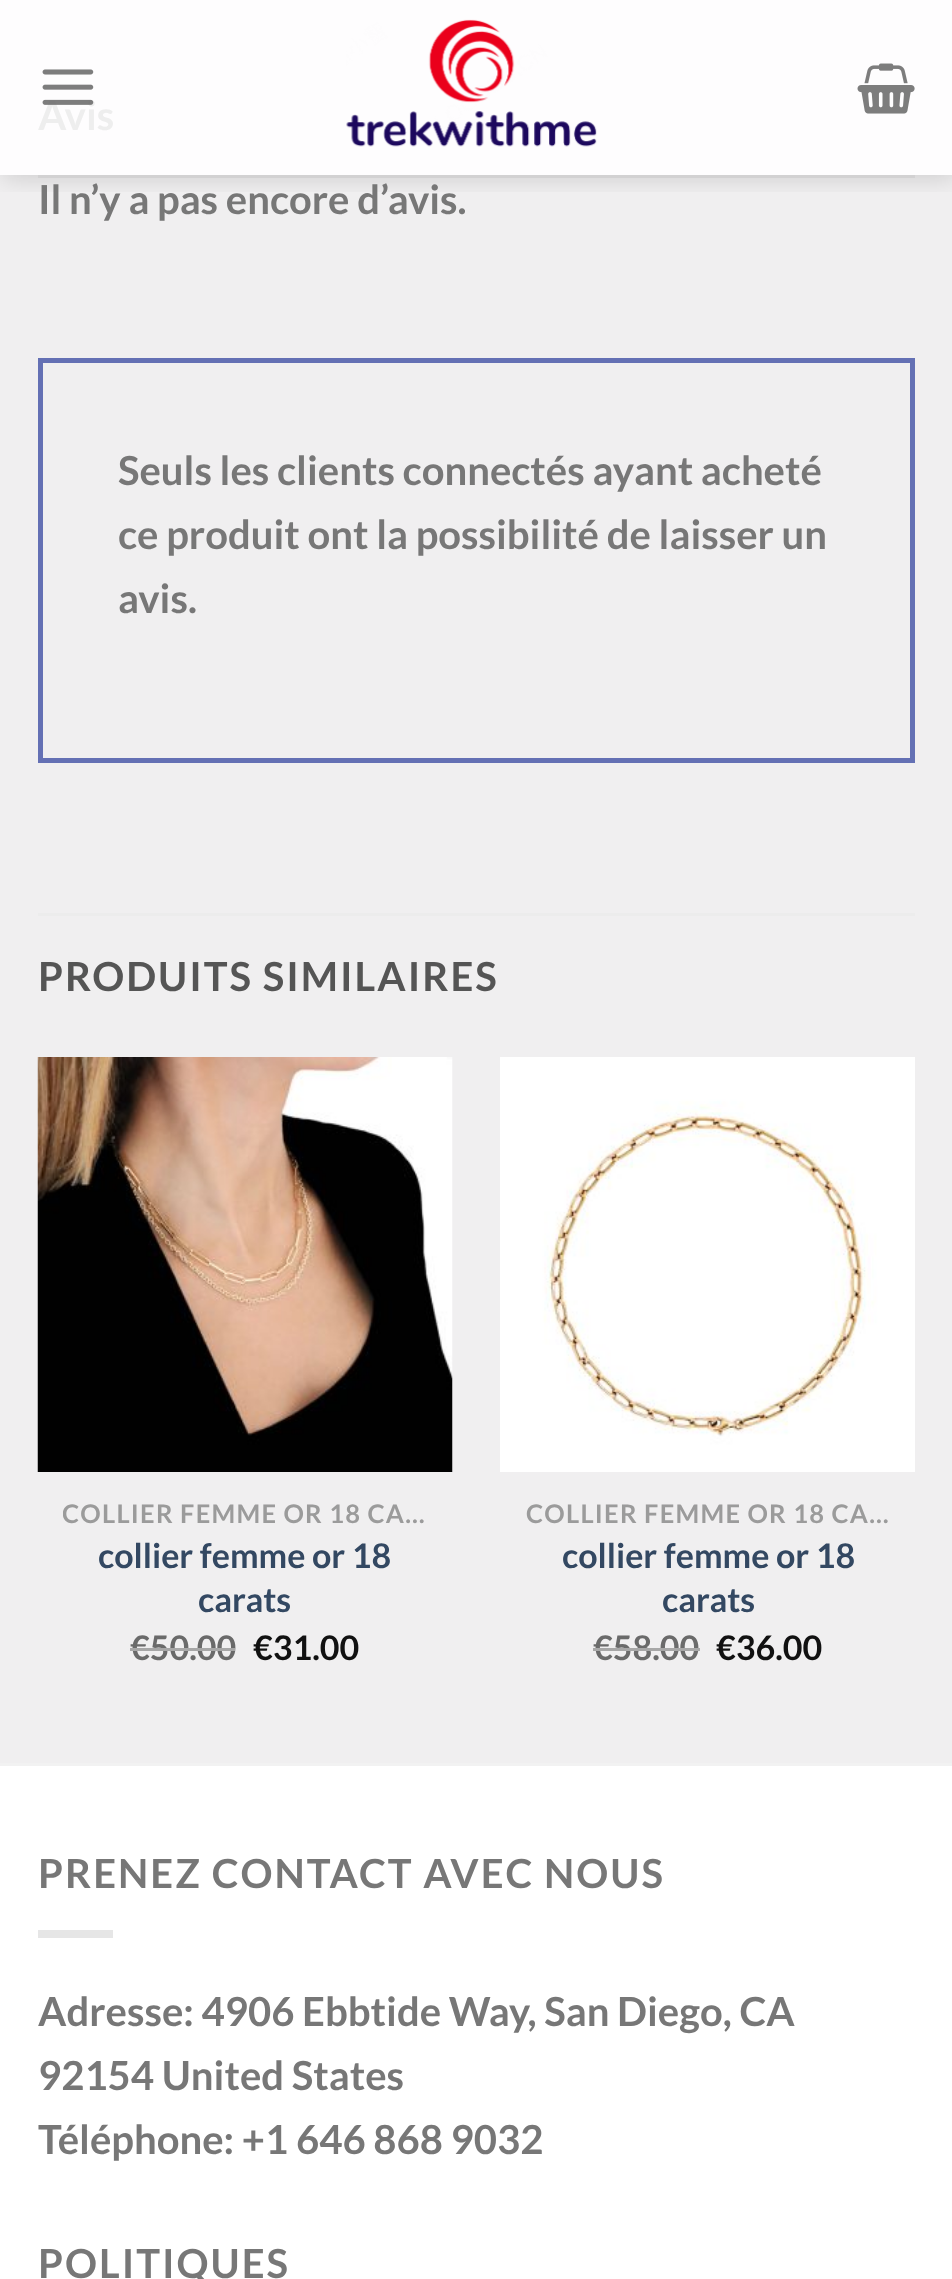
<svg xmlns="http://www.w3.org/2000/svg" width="952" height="2279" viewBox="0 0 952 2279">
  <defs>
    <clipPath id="clip1"><path d="M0 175h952v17H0z"/></clipPath>
    <clipPath id="clip2"><path d="M63 1498h365v30H63z"/></clipPath>
  </defs>
  <rect width="100%" height="100%" fill="#f0eff0"/>
  <path d="M0 0h952v175H0z" fill="#fefdfe"/>
  <g clip-path="url(#clip1)">
    <path d="M3 3h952v175H3z" fill="#00000026" filter="blur(12.5px)"/>
  </g>
  <image x="346" y="19" width="251" height="128" href="img/2.png"/>
  <image x="857" y="63" width="58" height="51" href="img/3.png"/>
  <path d="M38 175h877v3H38z" fill="#d2d1d2"/>
  <path d="M40.5 360.5h872v400H40.5z" fill="none" stroke="#6470b4" stroke-width="5"/>
  <path d="M38 913h877v3H38z" fill="#ececec"/>
  <image x="37" y="1057" width="416" height="415" href="img/4.png"/>
  <image x="500" y="1057" width="415" height="415" href="img/5.png"/>
  <path d="M0 1766h952v513H0z" fill="#fff"/>
  <path d="M0 1763h952v3H0z" fill="#f2f2f2"/>
  <path d="M38 1930h75v8H38z" fill="#e6e6e6"/>
  <text x="38" y="130" font-family="Lato" font-size="40" font-weight="bold" fill="#eee">Avis</text>
  <image x="42" y="69" width="52" height="36" href="img/1.png"/>
  <g font-family="Lato" font-size="40" font-weight="bold" fill="#777">
    <text x="38" y="214">Il n’y a pas encore d’avis.</text>
    <text x="118" y="485">Seuls les clients connectés ayant acheté</text>
    <text x="118" y="549">ce produit ont la possibilité de laisser un</text>
    <text x="118" y="613">avis.</text>
  </g>
  <text x="38" y="991" font-family="Lato" font-size="40" font-weight="bold" letter-spacing="2" fill="#555">PRODUITS SIMILAIRES</text>
  <g clip-path="url(#clip2)">
    <text x="62" y="1523" font-family="Lato" font-size="25.5" font-weight="bold" letter-spacing="1.25" fill="#9b9b9b">COLLIER FEMME OR 18 CA…</text>
  </g>
  <g font-family="Lato" font-size="34" font-weight="bold" fill="#334862">
    <text x="98" y="1568">collier femme or 18</text>
    <text x="198" y="1612">carats</text>
  </g>
  <text x="130" y="1660" font-family="Lato" font-size="34" font-weight="bold" fill="#6a6a6a">€50.00</text>
  <path d="M130 1648h105v3H130z" fill="#a7a7a7"/>
  <text x="253" y="1660" font-family="Lato" font-size="34" font-weight="bold" fill="#111">€31.00</text>
  <text x="526" y="1523" font-family="Lato" font-size="25.5" font-weight="bold" letter-spacing="1.25" fill="#9b9b9b">COLLIER FEMME OR 18 CA…</text>
  <g font-family="Lato" font-size="34" font-weight="bold" fill="#334862">
    <text x="562" y="1568">collier femme or 18</text>
    <text x="662" y="1612">carats</text>
  </g>
  <text x="593" y="1660" font-family="Lato" font-size="34" font-weight="bold" fill="#6a6a6a">€58.00</text>
  <path d="M593 1648h107v3H593z" fill="#a7a7a7"/>
  <text x="716" y="1660" font-family="Lato" font-size="34" font-weight="bold" fill="#111">€36.00</text>
  <text x="38" y="1888" font-family="Lato" font-size="40" font-weight="bold" letter-spacing="2" fill="#777">PRENEZ CONTACT AVEC NOUS</text>
  <g font-family="Lato" font-size="40" font-weight="bold" fill="#777">
    <text x="38" y="2026">Adresse: 4906 Ebbtide Way, San Diego, CA</text>
    <text x="38" y="2090">92154 United States</text>
    <text x="38" y="2154">Téléphone: +1 646 868 9032</text>
  </g>
  <text x="38" y="2278" font-family="Lato" font-size="40" font-weight="bold" letter-spacing="2" fill="#777">POLITIQUES</text>
</svg>
